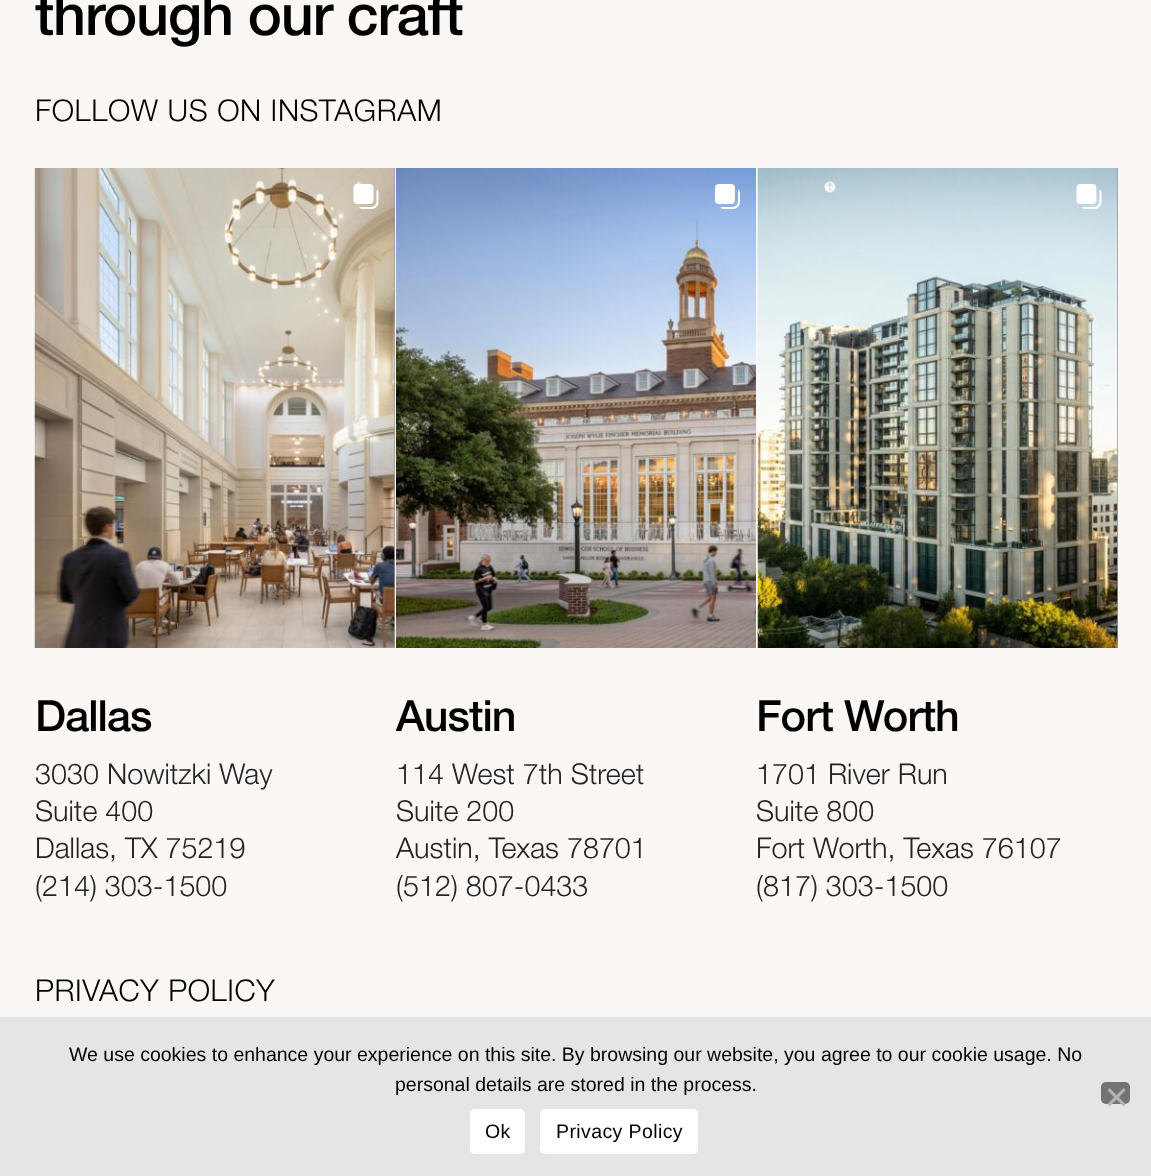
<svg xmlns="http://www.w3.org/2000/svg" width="1151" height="1176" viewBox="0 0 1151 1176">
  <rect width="100%" height="100%" fill="#faf7f5"/>
  <path d="M394 168h1v480H394z" fill="#999"/>
  <image x="34" y="168" width="361" height="480" href="img/1.png"/>
  <image x="353" y="184" width="26" height="25" href="img/2.png"/>
  <image x="396" y="168" width="360" height="480" href="img/3.png"/>
  <image x="715" y="184" width="25" height="25" href="img/4.png"/>
  <path d="M1117 168h1v480H1117z" fill="#999"/>
  <image x="757" y="168" width="361" height="480" href="img/5.png"/>
  <image x="1076" y="184" width="26" height="25" href="img/6.png"/>
  <path d="M0 1017h1151v159H0z" fill="#e5e5e5"/>
  <rect x="1101" y="1082" width="29" height="22" rx="5" fill="#737373"/>
  <path d="M1123.5 1088L1125.5 1090.5L1109.5 1106.5L1107.5 1104Z" fill="#b3b3b3"/>
  <path d="M1107.5 1090.5L1109.5 1088L1125.5 1104L1123.5 1106.5Z" fill="#b3b3b3"/>
  <rect x="470" y="1109" width="55" height="45" rx="5" fill="#fff"/>
  <rect x="540" y="1109" width="158" height="45" rx="5" fill="#fff"/>
  <text x="35" y="35" font-family="Helvetica Neue" font-size="57.5" font-weight="500" letter-spacing="-1.1" fill="#000">through our craft</text>
  <text x="35" y="121" font-family="Helvetica Neue" font-size="30" font-weight="300" letter-spacing="0.6" fill="#000">FOLLOW US ON INSTAGRAM</text>
  <text x="35" y="731" font-family="Helvetica Neue" font-size="43" font-weight="500" letter-spacing="-0.9" fill="#000">Dallas</text>
  <g font-family="Helvetica Neue" font-size="28.75" font-weight="300" fill="#242424">
    <text x="35" y="784">3030 Nowitzki Way</text>
    <text x="35" y="821">Suite 400</text>
    <text x="35" y="858">Dallas, TX 75219</text>
    <text x="35" y="896">(214) 303-1500</text>
  </g>
  <text x="396" y="731" font-family="Helvetica Neue" font-size="43" font-weight="500" letter-spacing="-0.9" fill="#000">Austin</text>
  <g font-family="Helvetica Neue" font-size="28.75" font-weight="300" fill="#242424">
    <text x="396" y="784">114 West 7th Street</text>
    <text x="396" y="821">Suite 200</text>
    <text x="396" y="858">Austin, Texas 78701</text>
    <text x="396" y="896">(512) 807-0433</text>
  </g>
  <text x="756" y="731" font-family="Helvetica Neue" font-size="43" font-weight="500" letter-spacing="-0.9" fill="#000">Fort Worth</text>
  <g font-family="Helvetica Neue" font-size="28.75" font-weight="300" fill="#242424">
    <text x="756" y="784">1701 River Run</text>
    <text x="756" y="821">Suite 800</text>
    <text x="756" y="858">Fort Worth, Texas 76107</text>
    <text x="756" y="896">(817) 303-1500</text>
  </g>
  <text x="35" y="1001" font-family="Helvetica Neue" font-size="30" font-weight="300" letter-spacing="0.6" fill="#000">PRIVACY POLICY</text>
  <g font-family="Liberation Sans" font-size="19.5" fill="#000">
    <text x="69" y="1061">We use cookies to enhance your experience on this site. By browsing our website, you agree to our cookie usage. No</text>
    <text x="395" y="1091">personal details are stored in the process.</text>
  </g>
  <g font-family="Liberation Sans" font-size="19.5" letter-spacing="0.4" fill="#000">
    <text x="485" y="1138">Ok</text>
    <text x="556" y="1138">Privacy Policy</text>
  </g>
</svg>
